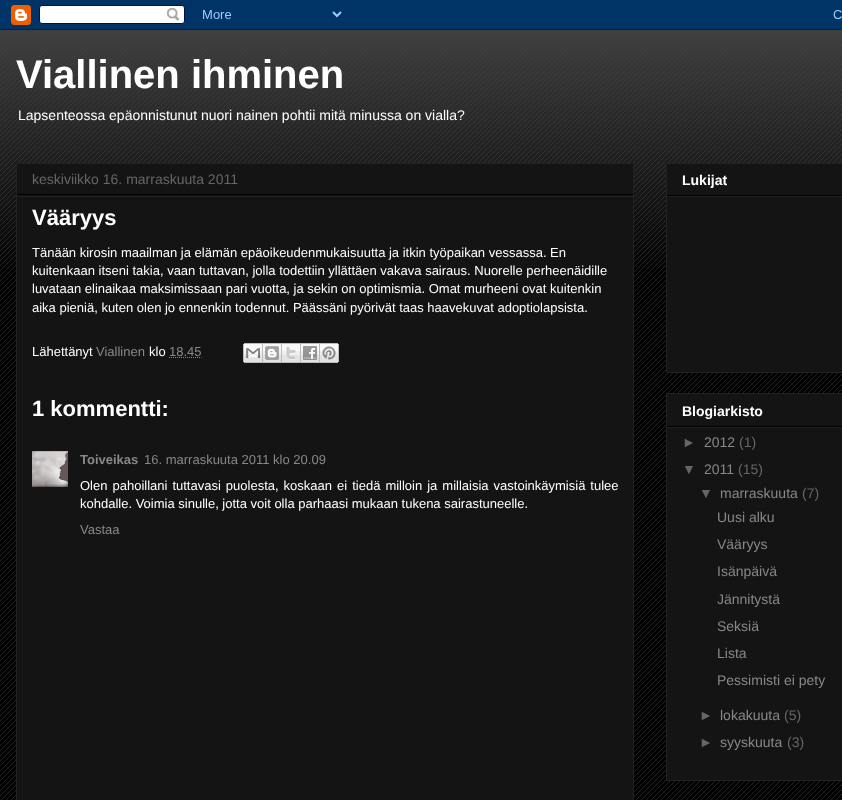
<svg xmlns="http://www.w3.org/2000/svg" width="842" height="800" viewBox="0 0 842 800">
  <rect width="100%" height="100%" fill="#000"/>
  <image x="0" y="30" width="842" height="770" href="img/1.png"/>
  <image x="0" y="0" width="842" height="30" href="img/2.png"/>
  <image x="0" y="30" width="842" height="238" href="img/3.png"/>
  <path d="M16.5 163.5h617v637H16.5z" fill="#141414" stroke="#222"/>
  <path d="M17 194h616v1H17z" fill="#000"/>
  <path d="M17 196h616v1H17z" fill="#222"/>
  <path d="M169 357.5H201.5" fill="none" stroke="#888" stroke-dasharray="1 1"/>
  <image x="243" y="343" width="20" height="20" href="img/4.png"/>
  <image x="263" y="343" width="19" height="20" href="img/5.png"/>
  <image x="282" y="343" width="19" height="20" href="img/6.png"/>
  <image x="301" y="343" width="19" height="20" href="img/7.png"/>
  <image x="320" y="343" width="19" height="20" href="img/8.png"/>
  <image x="32" y="451" width="36" height="36" href="img/9.png"/>
  <path d="M666.5 163.5h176v209H666.5z" fill="#141414" stroke="#222"/>
  <path d="M667 195h175v1H667z" fill="#000"/>
  <path d="M667 196h175v1H667z" fill="#222"/>
  <path d="M666.5 393.5h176v387H666.5z" fill="#141414" stroke="#222"/>
  <path d="M667 426h175v1H667z" fill="#000"/>
  <path d="M667 427h175v1H667z" fill="#222"/>
  <text x="16" y="88" font-family="Liberation Sans" font-size="40" font-weight="bold" fill="#fff">Viallinen ihminen</text>
  <text x="18" y="120" font-family="Liberation Sans" font-size="14" fill="#fff">Lapsenteossa epäonnistunut nuori nainen pohtii mitä minussa on vialla?</text>
  <text x="32" y="184" font-family="Liberation Sans" font-size="14" fill="#666">keskiviikko 16. marraskuuta 2011</text>
  <text x="32" y="225" font-family="Liberation Sans" font-size="22" font-weight="bold" fill="#fff">Vääryys</text>
  <g font-family="Liberation Sans" font-size="13" fill="#fff">
    <text x="32" y="257">Tänään kirosin maailman ja elämän epäoikeudenmukaisuutta ja itkin työpaikan vessassa. En</text>
    <text x="32" y="275">kuitenkaan itseni takia, vaan tuttavan, jolla todettiin yllättäen vakava sairaus. Nuorelle perheenäidille</text>
    <text x="32" y="293">luvataan elinaikaa maksimissaan pari vuotta, ja sekin on optimismia. Omat murheeni ovat kuitenkin</text>
    <text x="32" y="312">aika pieniä, kuten olen jo ennenkin todennut. Päässäni pyörivät taas haavekuvat adoptiolapsista.</text>
    <text x="32" y="356">Lähettänyt</text>
  </g>
  <text x="96" y="356" font-family="Liberation Sans" font-size="13" fill="#888">Viallinen</text>
  <text x="149" y="356" font-family="Liberation Sans" font-size="13" fill="#fff">klo</text>
  <text x="169" y="356" font-family="Liberation Sans" font-size="13" fill="#888">18.45</text>
  <text x="32" y="416" font-family="Liberation Sans" font-size="22" font-weight="bold" fill="#fff">1 kommentti:</text>
  <text x="80" y="464" font-family="Liberation Sans" font-size="13" font-weight="bold" fill="#888">Toiveikas</text>
  <text x="144" y="464" font-family="Liberation Sans" font-size="13" fill="#888">16. marraskuuta 2011 klo 20.09</text>
  <g font-family="Liberation Sans" font-size="13" fill="#fff">
    <text x="80" y="490" word-spacing="1.4">Olen pahoillani tuttavasi puolesta, koskaan ei tiedä milloin ja millaisia vastoinkäymisiä tulee</text>
    <text x="80" y="508">kohdalle. Voimia sinulle, jotta voit olla parhaasi mukaan tukena sairastuneelle.</text>
  </g>
  <text x="80" y="534" font-family="Liberation Sans" font-size="13" fill="#888">Vastaa</text>
  <g font-family="Liberation Sans" font-size="14" font-weight="bold" fill="#fff">
    <text x="682" y="185">Lukijat</text>
    <text x="682" y="416">Blogiarkisto</text>
  </g>
  <text x="682" y="447" font-family="Liberation Sans" font-size="14" fill="#666">►</text>
  <text x="704" y="447" font-family="Liberation Sans" font-size="14" fill="#888">2012</text>
  <g font-family="Liberation Sans" font-size="14" fill="#666">
    <text x="739" y="447">(1)</text>
    <text x="682" y="474">▼</text>
  </g>
  <text x="704" y="474" font-family="Liberation Sans" font-size="14" fill="#888">2011</text>
  <g font-family="Liberation Sans" font-size="14" fill="#666">
    <text x="738" y="474">(15)</text>
    <text x="699" y="498">▼</text>
  </g>
  <text x="720" y="498" font-family="Liberation Sans" font-size="14" fill="#888">marraskuuta</text>
  <text x="802" y="498" font-family="Liberation Sans" font-size="14" fill="#666">(7)</text>
  <g font-family="Liberation Sans" font-size="14" fill="#888">
    <text x="717" y="522">Uusi alku</text>
    <text x="717" y="549">Vääryys</text>
    <text x="717" y="576">Isänpäivä</text>
    <text x="717" y="604">Jännitystä</text>
    <text x="717" y="631">Seksiä</text>
    <text x="717" y="658">Lista</text>
    <text x="717" y="685">Pessimisti ei pety</text>
  </g>
  <text x="699" y="720" font-family="Liberation Sans" font-size="14" fill="#666">►</text>
  <text x="720" y="720" font-family="Liberation Sans" font-size="14" fill="#888">lokakuuta</text>
  <g font-family="Liberation Sans" font-size="14" fill="#666">
    <text x="784" y="720">(5)</text>
    <text x="699" y="747">►</text>
  </g>
  <text x="720" y="747" font-family="Liberation Sans" font-size="14" fill="#888">syyskuuta</text>
  <text x="787" y="747" font-family="Liberation Sans" font-size="14" fill="#666">(3)</text>
</svg>
